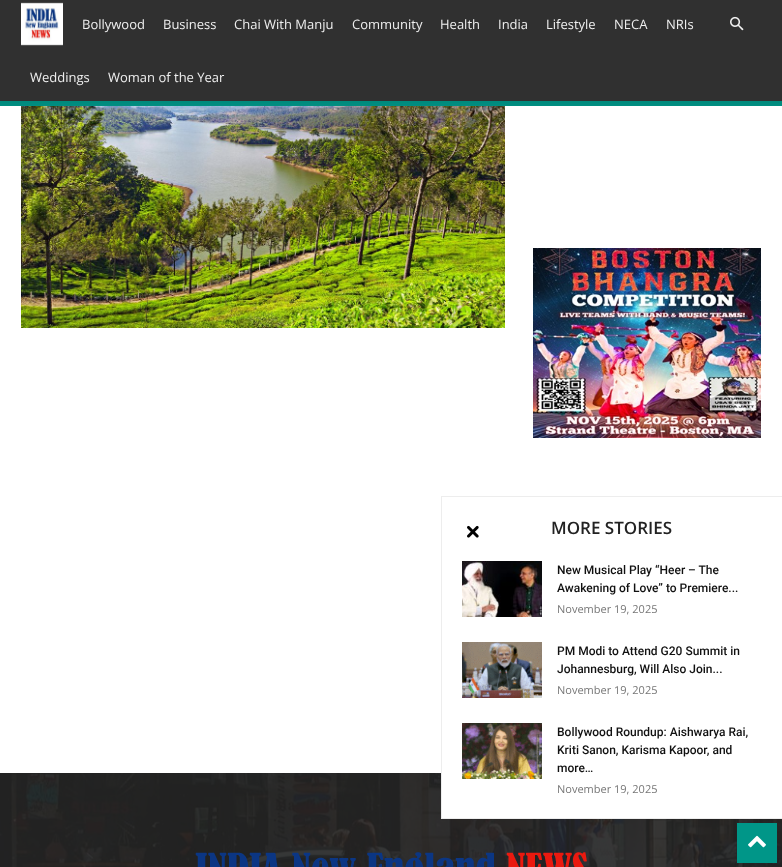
<svg xmlns="http://www.w3.org/2000/svg" width="782" height="867" viewBox="0 0 782 867">
  <rect width="100%" height="100%" fill="#fff"/>
  <path d="M0 0h782v101H0z" fill="#303030"/>
  <image x="21" y="2" width="42" height="44" href="img/1.png"/>
  <image x="730" y="16" width="14" height="15" href="img/2.png"/>
  <path d="M0 101h782v5H0z" fill="#009688"/>
  <image x="0" y="101" width="782" height="5" href="img/3.png"/>
  <image x="21" y="106" width="484" height="222" href="img/4.png"/>
  <image x="533" y="248" width="228" height="190" href="img/5.png"/>
  <path d="M0 773h782v94H0z" fill="#222"/>
  <image x="0" y="773" width="782" height="94" href="img/6.png"/>
  <image x="195" y="852" width="392" height="15" href="img/7.png"/>
  <path d="M442 773h340v45H442z" fill="#fff"/>
  <path d="M441 496h341v1H441z" fill="#ededed"/>
  <path d="M441 818h341v1H441z" fill="#ededed"/>
  <path d="M441 496h1v323H441z" fill="#ededed"/>
  <image x="467" y="525" width="12" height="13" href="img/8.png"/>
  <image x="462" y="561" width="80" height="56" href="img/9.png"/>
  <image x="462" y="642" width="80" height="56" href="img/10.png"/>
  <image x="462" y="723" width="80" height="56" href="img/11.png"/>
  <path d="M737 823h40v40H737z" fill="#009688"/>
  <image x="748" y="835" width="18" height="13" href="img/12.png"/>
  <g font-family="Open Sans" font-size="13" fill="#efefef">
    <text x="82" y="29">Bollywood</text>
    <text x="163" y="29">Business</text>
    <text x="234" y="29">Chai With Manju</text>
    <text x="352" y="29">Community</text>
    <text x="440" y="29">Health</text>
    <text x="498" y="29">India</text>
    <text x="546" y="29">Lifestyle</text>
    <text x="614" y="29">NECA</text>
    <text x="666" y="29">NRIs</text>
    <text x="30" y="82">Weddings</text>
    <text x="108" y="82">Woman of the Year</text>
  </g>
  <text x="551" y="534" font-family="Open Sans" font-size="17" font-weight="600" fill="#222">MORE STORIES</text>
  <g font-family="Roboto" font-size="12" font-weight="500" fill="#111">
    <text x="557" y="574">New Musical Play “Heer – The</text>
    <text x="557" y="592">Awakening of Love” to Premiere...</text>
  </g>
  <text x="557" y="613" font-family="Open Sans" font-size="11" fill="#767676">November 19, 2025</text>
  <g font-family="Roboto" font-size="12" font-weight="500" fill="#111">
    <text x="557" y="655">PM Modi to Attend G20 Summit in</text>
    <text x="557" y="673">Johannesburg, Will Also Join...</text>
  </g>
  <text x="557" y="694" font-family="Open Sans" font-size="11" fill="#767676">November 19, 2025</text>
  <g font-family="Roboto" font-size="12" font-weight="500" fill="#111">
    <text x="557" y="736">Bollywood Roundup: Aishwarya Rai,</text>
    <text x="557" y="754">Kriti Sanon, Karisma Kapoor, and</text>
    <text x="557" y="772">more…</text>
  </g>
  <text x="557" y="793" font-family="Open Sans" font-size="11" fill="#767676">November 19, 2025</text>
</svg>
